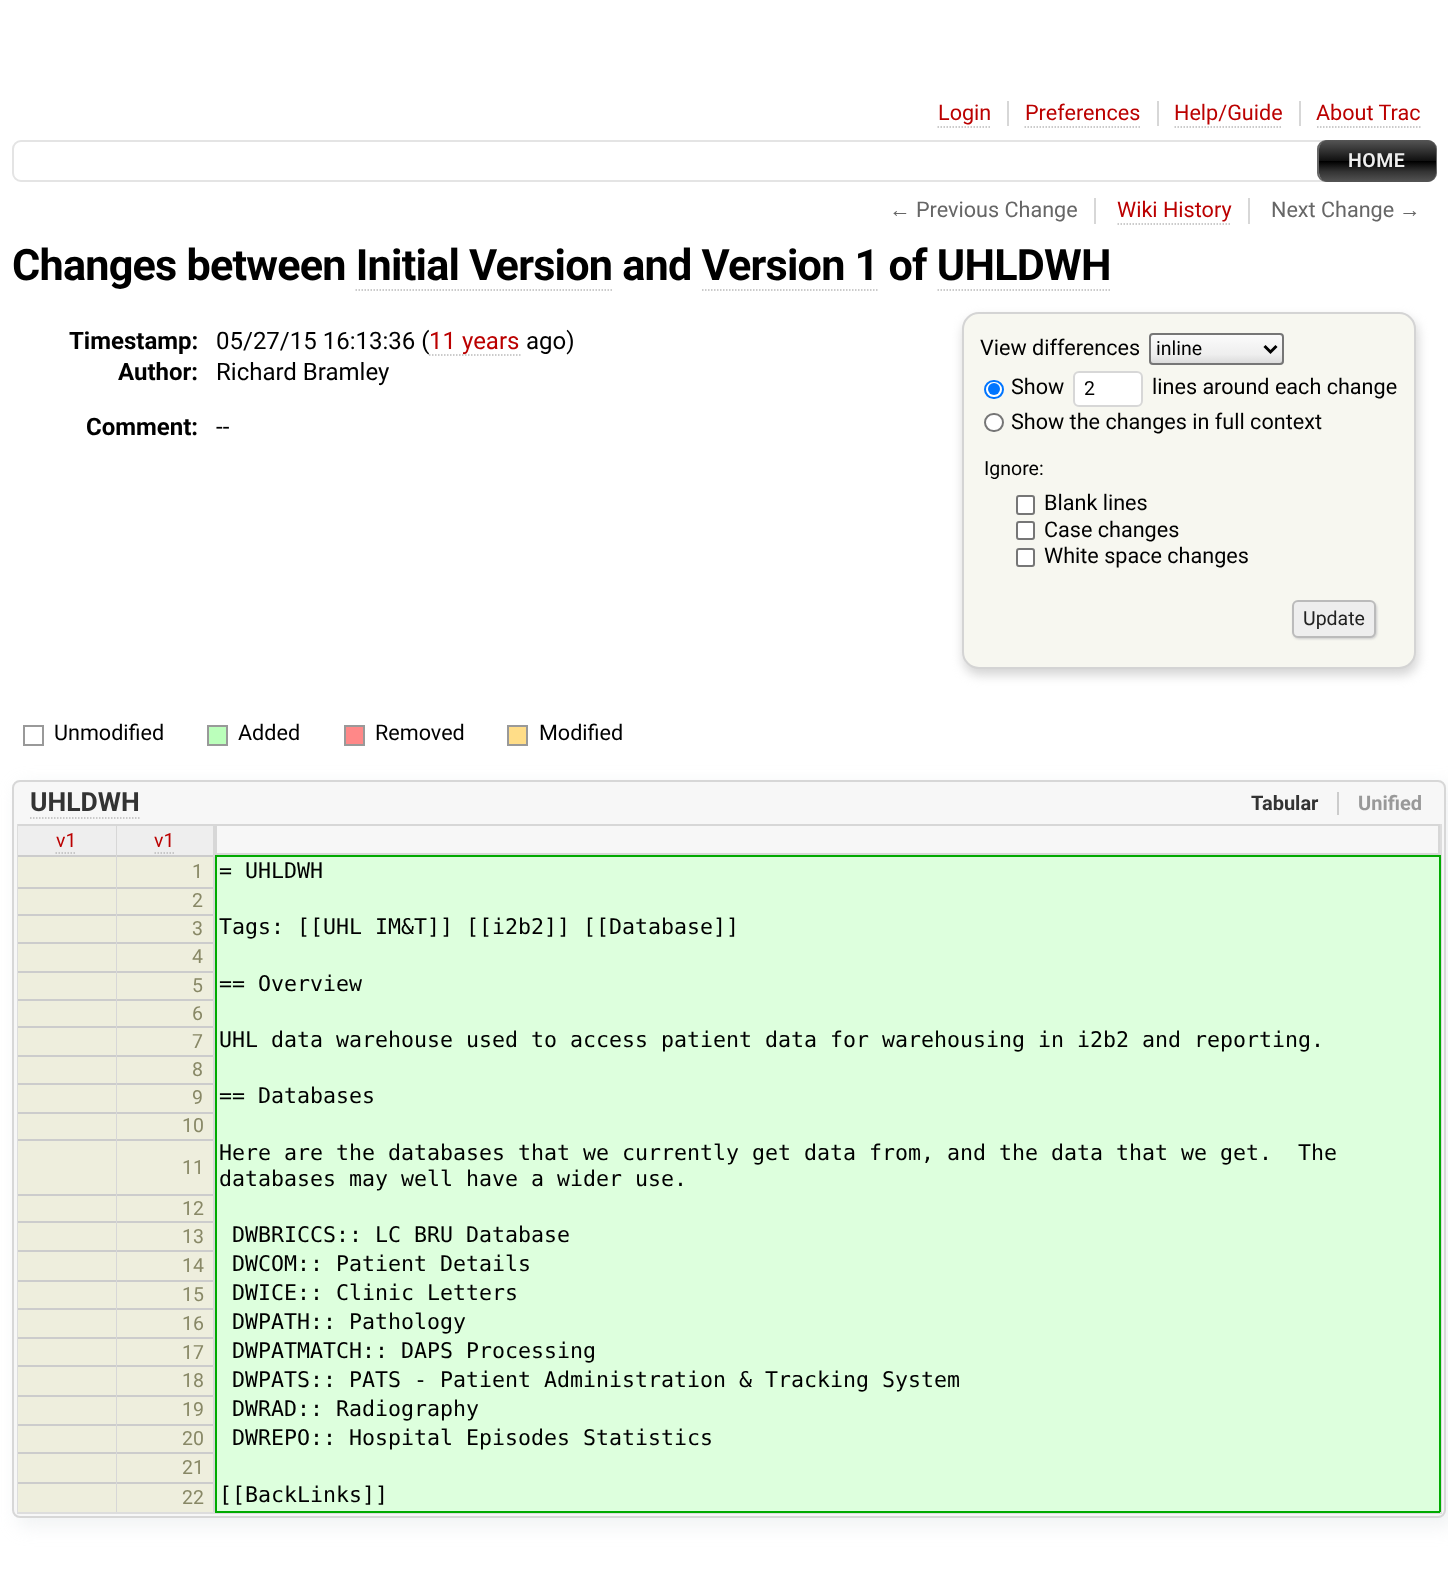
<svg xmlns="http://www.w3.org/2000/svg" width="1448" height="1569" viewBox="0 0 1448 1569">
  <defs>
    <linearGradient id="g1" gradientUnits="userSpaceOnUse" x1="1377" y1="140" x2="1377" y2="182"><stop offset="0" stop-color="#555"/><stop offset="0.25" stop-color="#333"/><stop offset="0.49" stop-color="#111"/><stop offset="0.51" stop-color="#000"/><stop offset="0.75" stop-color="#333"/><stop offset="1" stop-color="#555"/></linearGradient>
    <clipPath id="clip1"><rect x="1149" y="333" width="135" height="32" rx="4"/></clipPath>
    <linearGradient id="g2" gradientUnits="userSpaceOnUse" x1="1217" y1="363" x2="1217" y2="335"><stop offset="0" stop-color="#dbdbdb"/><stop offset="0.3" stop-color="#eee"/><stop offset="1" stop-color="#fbfbfb"/></linearGradient>
  </defs>
  <rect width="100%" height="100%" fill="#fff"/>
  <path d="M1007 101h2v25H1007z" fill="#d7d7d7"/>
  <path d="M937.5 127H991.5" fill="none" stroke="#bbb" stroke-width="1.5" stroke-dasharray="1.5 1.5"/>
  <path d="M1157 101h2v25H1157z" fill="#d7d7d7"/>
  <path d="M1024.5 127H1140" fill="none" stroke="#bbb" stroke-width="1.5" stroke-dasharray="1.5 1.5"/>
  <path d="M1299 101h2v25H1299z" fill="#d7d7d7"/>
  <path d="M1174.5 127H1282.5" fill="none" stroke="#bbb" stroke-width="1.5" stroke-dasharray="1.5 1.5"/>
  <path d="M1317 127H1420.5" fill="none" stroke="#bbb" stroke-width="1.5" stroke-dasharray="1.5 1.5"/>
  <rect x="13" y="141" width="1423" height="40" rx="8" fill="none" stroke="#e4e4e4" stroke-width="2"/>
  <rect x="1318" y="141" width="118" height="40" rx="8" fill="none" stroke="#666" stroke-width="2"/>
  <rect x="1319" y="140" width="117" height="42" rx="9" fill="url(#g1)"/>
  <path d="M1094 198h2v26H1094z" fill="#d7d7d7"/>
  <path d="M1248 198h2v26H1248z" fill="#d7d7d7"/>
  <path d="M1117.5 224H1231.5" fill="none" stroke="#bbb" stroke-width="1.5" stroke-dasharray="1.5 1.5"/>
  <path d="M355.5 290H612" fill="none" stroke="#bbb" stroke-width="1.5" stroke-dasharray="1.5 1.5"/>
  <path d="M702 290H879" fill="none" stroke="#bbb" stroke-width="1.5" stroke-dasharray="1.5 1.5"/>
  <path d="M937.5 290H1111.5" fill="none" stroke="#bbb" stroke-width="1.5" stroke-dasharray="1.5 1.5"/>
  <path d="M429 355H520.5" fill="none" stroke="#bbb" stroke-width="1.5" stroke-dasharray="1.5 1.5"/>
  <rect x="963" y="318" width="455" height="357" rx="17" fill="#d4d4d4" filter="blur(5.5px)"/>
  <rect x="963" y="313" width="452" height="355" rx="16" fill="#f7f7f0" stroke="#d4d4d4" stroke-width="2"/>
  <g clip-path="url(#clip1)">
    <path d="M1149 335h135v28H1149z" fill="url(#g2)"/>
  </g>
  <rect x="1150" y="334" width="133" height="30" rx="3" fill="none" stroke="#767676" stroke-width="2"/>
  <path d="M1264.5 346L1270.5 352L1276.5 346" fill="none" stroke="#000" stroke-width="3"/>
  <rect x="985" y="381" width="18" height="17" rx="8.5" fill="#fff" stroke="#0075ff" stroke-width="2"/>
  <circle cx="994" cy="389" r="6" fill="#0075ff"/>
  <rect x="1074" y="372" width="68" height="34" rx="5" fill="#fff" stroke="#d7d7d7" stroke-width="2"/>
  <rect x="985" y="414" width="18" height="17" rx="8.5" fill="#fff" stroke="#767676" stroke-width="2"/>
  <rect x="1017" y="496" width="17" height="18" rx="2" fill="#fff" stroke="#767676" stroke-width="2"/>
  <rect x="1017" y="522" width="17" height="17" rx="2" fill="#fff" stroke="#767676" stroke-width="2"/>
  <rect x="1017" y="549" width="17" height="17" rx="2" fill="#fff" stroke="#767676" stroke-width="2"/>
  <rect x="1293" y="602" width="84" height="37" rx="6" fill="#ccc" filter="blur(1px)"/>
  <rect x="1293" y="601" width="82" height="36" rx="5" fill="#eee" stroke="#bbb" stroke-width="2"/>
  <path d="M24 726h19v19H24z" fill="none" stroke="#999" stroke-width="2"/>
  <path d="M208 726h19v19H208z" fill="#bfb" stroke="#999" stroke-width="2"/>
  <path d="M345 726h19v19H345z" fill="#f88" stroke="#999" stroke-width="2"/>
  <path d="M508 726h19v19H508z" fill="#fd8" stroke="#999" stroke-width="2"/>
  <rect x="17" y="785" width="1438" height="742" rx="9" fill="#d2d7dc4d" filter="blur(9px)"/>
  <rect x="13" y="781" width="1432" height="736" rx="7" fill="#f7f7f7" stroke="#d7d7d7" stroke-width="2"/>
  <path d="M30 818H139.5" fill="none" stroke="#bbb" stroke-width="1.5" stroke-dasharray="1.5 1.5"/>
  <path d="M1337 792h2v23H1337z" fill="#ccc"/>
  <path d="M1440 824h2v690H1440z" fill="#ddd"/>
  <path d="M17 1512h1425v2H17z" fill="#ddd"/>
  <path d="M17 824h2v690H17z" fill="#ddd"/>
  <path d="M18 826h98v29H18z" fill="#eee"/>
  <path d="M18 824h197v2H18z" fill="#d7d7d7"/>
  <path d="M116 824h1v31H116z" fill="#d7d7d7"/>
  <path d="M55.5 853H76.5" fill="none" stroke="#bbb" stroke-width="1.5" stroke-dasharray="1.5 1.5"/>
  <path d="M117 826h96v29H117z" fill="#eee"/>
  <path d="M213 824h2v31H213z" fill="#d7d7d7"/>
  <path d="M154.5 853H175.5" fill="none" stroke="#bbb" stroke-width="1.5" stroke-dasharray="1.5 1.5"/>
  <path d="M216 825h1223v29H216z" fill="none" stroke="#d7d7d7" stroke-width="2"/>
  <path d="M18 857h98v30H18z" fill="#eed"/>
  <path d="M18 855h197v2H18z" fill="#ccc"/>
  <path d="M116 855h1v32H116z" fill="#d7d7d7"/>
  <path d="M217 857h1222v654H217z" fill="#dfd"/>
  <path d="M215 855h1225v2H215z" fill="#0a0"/>
  <path d="M1439 855h2v657H1439z" fill="#0a0"/>
  <path d="M215 855h2v627H215z" fill="#0a0"/>
  <path d="M117 857h96v30H117z" fill="#eed"/>
  <path d="M213 855h2v32H213z" fill="#d7d7d7"/>
  <path d="M18 889h98v25H18z" fill="#eed"/>
  <path d="M18 887h197v2H18z" fill="#ccc"/>
  <path d="M116 887h1v27H116z" fill="#d7d7d7"/>
  <path d="M117 889h96v25H117z" fill="#eed"/>
  <path d="M213 887h2v27H213z" fill="#d7d7d7"/>
  <path d="M18 916h98v26H18z" fill="#eed"/>
  <path d="M18 914h197v2H18z" fill="#ccc"/>
  <path d="M116 914h1v28H116z" fill="#d7d7d7"/>
  <path d="M117 916h96v26H117z" fill="#eed"/>
  <path d="M213 914h2v28H213z" fill="#d7d7d7"/>
  <path d="M18 944h98v27H18z" fill="#eed"/>
  <path d="M18 942h197v2H18z" fill="#ccc"/>
  <path d="M116 942h1v29H116z" fill="#d7d7d7"/>
  <path d="M117 944h96v27H117z" fill="#eed"/>
  <path d="M213 942h2v29H213z" fill="#d7d7d7"/>
  <path d="M18 973h98v26H18z" fill="#eed"/>
  <path d="M18 971h197v2H18z" fill="#ccc"/>
  <path d="M116 971h1v28H116z" fill="#d7d7d7"/>
  <path d="M117 973h96v26H117z" fill="#eed"/>
  <path d="M213 971h2v28H213z" fill="#d7d7d7"/>
  <path d="M18 1001h98v25H18z" fill="#eed"/>
  <path d="M18 999h197v2H18z" fill="#ccc"/>
  <path d="M116 999h1v27H116z" fill="#d7d7d7"/>
  <path d="M117 1001h96v25H117z" fill="#eed"/>
  <path d="M213 999h2v27H213z" fill="#d7d7d7"/>
  <path d="M18 1028h98v27H18z" fill="#eed"/>
  <path d="M18 1026h197v2H18z" fill="#ccc"/>
  <path d="M116 1026h1v29H116z" fill="#d7d7d7"/>
  <path d="M117 1028h96v27H117z" fill="#eed"/>
  <path d="M213 1026h2v29H213z" fill="#d7d7d7"/>
  <path d="M18 1057h98v26H18z" fill="#eed"/>
  <path d="M18 1055h197v2H18z" fill="#ccc"/>
  <path d="M116 1055h1v28H116z" fill="#d7d7d7"/>
  <path d="M117 1057h96v26H117z" fill="#eed"/>
  <path d="M213 1055h2v28H213z" fill="#d7d7d7"/>
  <path d="M18 1085h98v27H18z" fill="#eed"/>
  <path d="M18 1083h197v2H18z" fill="#ccc"/>
  <path d="M116 1083h1v29H116z" fill="#d7d7d7"/>
  <path d="M117 1085h96v27H117z" fill="#eed"/>
  <path d="M213 1083h2v29H213z" fill="#d7d7d7"/>
  <path d="M18 1114h98v25H18z" fill="#eed"/>
  <path d="M18 1112h197v2H18z" fill="#ccc"/>
  <path d="M116 1112h1v27H116z" fill="#d7d7d7"/>
  <path d="M117 1114h96v25H117z" fill="#eed"/>
  <path d="M213 1112h2v27H213z" fill="#d7d7d7"/>
  <path d="M18 1141h98v53H18z" fill="#eed"/>
  <path d="M18 1139h197v2H18z" fill="#ccc"/>
  <path d="M116 1139h1v55H116z" fill="#d7d7d7"/>
  <path d="M117 1141h96v53H117z" fill="#eed"/>
  <path d="M213 1139h2v55H213z" fill="#d7d7d7"/>
  <path d="M18 1196h98v25H18z" fill="#eed"/>
  <path d="M18 1194h197v2H18z" fill="#ccc"/>
  <path d="M116 1194h1v27H116z" fill="#d7d7d7"/>
  <path d="M117 1196h96v25H117z" fill="#eed"/>
  <path d="M213 1194h2v27H213z" fill="#d7d7d7"/>
  <path d="M18 1223h98v27H18z" fill="#eed"/>
  <path d="M18 1221h197v2H18z" fill="#ccc"/>
  <path d="M116 1221h1v29H116z" fill="#d7d7d7"/>
  <path d="M117 1223h96v27H117z" fill="#eed"/>
  <path d="M213 1221h2v29H213z" fill="#d7d7d7"/>
  <path d="M18 1252h98v28H18z" fill="#eed"/>
  <path d="M18 1250h197v2H18z" fill="#ccc"/>
  <path d="M116 1250h1v30H116z" fill="#d7d7d7"/>
  <path d="M117 1252h96v28H117z" fill="#eed"/>
  <path d="M213 1250h2v30H213z" fill="#d7d7d7"/>
  <path d="M18 1282h98v26H18z" fill="#eed"/>
  <path d="M18 1280h197v2H18z" fill="#ccc"/>
  <path d="M116 1280h1v28H116z" fill="#d7d7d7"/>
  <path d="M117 1282h96v26H117z" fill="#eed"/>
  <path d="M213 1280h2v28H213z" fill="#d7d7d7"/>
  <path d="M18 1310h98v27H18z" fill="#eed"/>
  <path d="M18 1308h197v2H18z" fill="#ccc"/>
  <path d="M116 1308h1v29H116z" fill="#d7d7d7"/>
  <path d="M117 1310h96v27H117z" fill="#eed"/>
  <path d="M213 1308h2v29H213z" fill="#d7d7d7"/>
  <path d="M18 1339h98v26H18z" fill="#eed"/>
  <path d="M18 1337h197v2H18z" fill="#ccc"/>
  <path d="M116 1337h1v28H116z" fill="#d7d7d7"/>
  <path d="M117 1339h96v26H117z" fill="#eed"/>
  <path d="M213 1337h2v28H213z" fill="#d7d7d7"/>
  <path d="M18 1367h98v28H18z" fill="#eed"/>
  <path d="M18 1365h197v2H18z" fill="#ccc"/>
  <path d="M116 1365h1v30H116z" fill="#d7d7d7"/>
  <path d="M117 1367h96v28H117z" fill="#eed"/>
  <path d="M213 1365h2v30H213z" fill="#d7d7d7"/>
  <path d="M18 1397h98v27H18z" fill="#eed"/>
  <path d="M18 1395h197v2H18z" fill="#ccc"/>
  <path d="M116 1395h1v29H116z" fill="#d7d7d7"/>
  <path d="M117 1397h96v27H117z" fill="#eed"/>
  <path d="M213 1395h2v29H213z" fill="#d7d7d7"/>
  <path d="M18 1426h98v26H18z" fill="#eed"/>
  <path d="M18 1424h197v2H18z" fill="#ccc"/>
  <path d="M116 1424h1v28H116z" fill="#d7d7d7"/>
  <path d="M117 1426h96v26H117z" fill="#eed"/>
  <path d="M213 1424h2v28H213z" fill="#d7d7d7"/>
  <path d="M18 1454h98v28H18z" fill="#eed"/>
  <path d="M18 1452h197v2H18z" fill="#ccc"/>
  <path d="M116 1452h1v30H116z" fill="#d7d7d7"/>
  <path d="M117 1454h96v28H117z" fill="#eed"/>
  <path d="M213 1452h2v30H213z" fill="#d7d7d7"/>
  <path d="M18 1484h98v28H18z" fill="#eed"/>
  <path d="M18 1482h197v2H18z" fill="#ccc"/>
  <path d="M116 1482h1v30H116z" fill="#d7d7d7"/>
  <path d="M215 1511h1225v2H215z" fill="#0a0"/>
  <path d="M215 1482h2v30H215z" fill="#0a0"/>
  <path d="M117 1484h96v28H117z" fill="#eed"/>
  <path d="M213 1482h2v30H213z" fill="#d7d7d7"/>
  <g font-family="Roboto" font-size="21.6" fill="#b00">
    <text x="938" y="120">Login</text>
    <text x="1025" y="120">Preferences</text>
    <text x="1174" y="120">Help/Guide</text>
    <text x="1316" y="120">About Trac</text>
  </g>
  <text x="1348" y="167" font-family="Roboto" font-size="19.5" font-weight="600" letter-spacing="0.5" fill="#eee">HOME</text>
  <text x="889" y="217" font-family="Liberation Sans" font-size="21.6" fill="#666">←</text>
  <text x="916" y="217" font-family="Roboto" font-size="21.6" fill="#666">Previous Change</text>
  <text x="1117" y="217" font-family="Roboto" font-size="21.6" fill="#b00">Wiki History</text>
  <text x="1271" y="217" font-family="Roboto" font-size="21.6" fill="#666">Next Change</text>
  <text x="1399" y="217" font-family="Liberation Sans" font-size="21.6" fill="#666">→</text>
  <text x="12" y="280" font-family="Roboto" font-size="43.2" font-weight="bold" letter-spacing="-0.78" fill="#000">Changes between Initial Version and Version 1 of UHLDWH</text>
  <text x="69" y="349" font-family="Roboto" font-size="24" font-weight="bold" fill="#000">Timestamp:</text>
  <text x="216" y="349" font-family="Roboto" font-size="24" fill="#000">05/27/15 16:13:36 (</text>
  <text x="429" y="349" font-family="Roboto" font-size="24" fill="#b00">11 years</text>
  <text x="526" y="349" font-family="Roboto" font-size="24" fill="#000">ago)</text>
  <text x="118" y="380" font-family="Roboto" font-size="24" font-weight="bold" fill="#000">Author:</text>
  <text x="216" y="380" font-family="Roboto" font-size="24" fill="#000">Richard Bramley</text>
  <text x="86" y="435" font-family="Roboto" font-size="24" font-weight="bold" fill="#000">Comment:</text>
  <text x="216" y="435" font-family="Roboto" font-size="24" fill="#000">--</text>
  <text x="980" y="355" font-family="Roboto" font-size="21.6" fill="#000">View differences</text>
  <text x="1156" y="355" font-family="Roboto" font-size="19.5" fill="#000">inline</text>
  <text x="1011" y="394" font-family="Roboto" font-size="21.6" fill="#000">Show</text>
  <text x="1084" y="395" font-family="Roboto" font-size="19.5" fill="#000">2</text>
  <g font-family="Roboto" font-size="21.6" fill="#000">
    <text x="1152" y="394">lines around each change</text>
    <text x="1011" y="429">Show the changes in full context</text>
  </g>
  <text x="984" y="475" font-family="Roboto" font-size="19.5" fill="#000">Ignore:</text>
  <g font-family="Roboto" font-size="21.6" fill="#000">
    <text x="1044" y="510">Blank lines</text>
    <text x="1044" y="537">Case changes</text>
    <text x="1044" y="563">White space changes</text>
  </g>
  <text x="1303" y="625" font-family="Roboto" font-size="19.5" fill="#222">Update</text>
  <g font-family="Roboto" font-size="21.6" fill="#000">
    <text x="54" y="740">Unmodified</text>
    <text x="238" y="740">Added</text>
    <text x="375" y="740">Removed</text>
    <text x="539" y="740">Modified</text>
  </g>
  <text x="30" y="811" font-family="Roboto" font-size="26.5" font-weight="bold" fill="#333">UHLDWH</text>
  <text x="1251" y="810" font-family="Roboto" font-size="20" font-weight="bold" fill="#333">Tabular</text>
  <text x="1358" y="810" font-family="Roboto" font-size="20" font-weight="bold" fill="#999">Unified</text>
  <g font-family="Roboto" font-size="19.5" fill="#b00">
    <text x="56" y="847">v1</text>
    <text x="154" y="847">v1</text>
  </g>
  <text x="219" y="878" font-family="DejaVu Sans Mono" font-size="21.6" fill="#000">= UHLDWH</text>
  <g font-family="Roboto" font-size="19.5" fill="#886">
    <text x="192" y="878">1</text>
    <text x="192" y="907">2</text>
  </g>
  <text x="219" y="934" font-family="DejaVu Sans Mono" font-size="21.6" fill="#000">Tags: [[UHL IM&amp;T]] [[i2b2]] [[Database]]</text>
  <g font-family="Roboto" font-size="19.5" fill="#886">
    <text x="192" y="935">3</text>
    <text x="192" y="963">4</text>
  </g>
  <text x="219" y="991" font-family="DejaVu Sans Mono" font-size="21.6" fill="#000">== Overview</text>
  <g font-family="Roboto" font-size="19.5" fill="#886">
    <text x="192" y="992">5</text>
    <text x="192" y="1020">6</text>
  </g>
  <text x="219" y="1047" font-family="DejaVu Sans Mono" font-size="21.6" fill="#000">UHL data warehouse used to access patient data for warehousing in i2b2 and reporting.</text>
  <g font-family="Roboto" font-size="19.5" fill="#886">
    <text x="192" y="1048">7</text>
    <text x="192" y="1076">8</text>
  </g>
  <text x="219" y="1103" font-family="DejaVu Sans Mono" font-size="21.6" fill="#000">== Databases</text>
  <g font-family="Roboto" font-size="19.5" fill="#886">
    <text x="192" y="1104">9</text>
    <text x="182" y="1132">10</text>
  </g>
  <g font-family="DejaVu Sans Mono" font-size="21.6" fill="#000">
    <text x="219" y="1160" xml:space="preserve">Here are the databases that we currently get data from, and the data that we get.  The</text>
    <text x="219" y="1186">databases may well have a wider use.</text>
  </g>
  <g font-family="Roboto" font-size="19.5" fill="#886">
    <text x="182" y="1174">11</text>
    <text x="182" y="1215">12</text>
  </g>
  <text x="232" y="1242" font-family="DejaVu Sans Mono" font-size="21.6" fill="#000">DWBRICCS:: LC BRU Database</text>
  <text x="182" y="1243" font-family="Roboto" font-size="19.5" fill="#886">13</text>
  <text x="232" y="1271" font-family="DejaVu Sans Mono" font-size="21.6" fill="#000">DWCOM:: Patient Details</text>
  <text x="182" y="1272" font-family="Roboto" font-size="19.5" fill="#886">14</text>
  <text x="232" y="1300" font-family="DejaVu Sans Mono" font-size="21.6" fill="#000">DWICE:: Clinic Letters</text>
  <text x="182" y="1301" font-family="Roboto" font-size="19.5" fill="#886">15</text>
  <text x="232" y="1329" font-family="DejaVu Sans Mono" font-size="21.6" fill="#000">DWPATH:: Pathology</text>
  <text x="182" y="1330" font-family="Roboto" font-size="19.5" fill="#886">16</text>
  <text x="232" y="1358" font-family="DejaVu Sans Mono" font-size="21.6" fill="#000">DWPATMATCH:: DAPS Processing</text>
  <text x="182" y="1359" font-family="Roboto" font-size="19.5" fill="#886">17</text>
  <text x="232" y="1387" font-family="DejaVu Sans Mono" font-size="21.6" fill="#000">DWPATS:: PATS - Patient Administration &amp; Tracking System</text>
  <text x="182" y="1387" font-family="Roboto" font-size="19.5" fill="#886">18</text>
  <text x="232" y="1416" font-family="DejaVu Sans Mono" font-size="21.6" fill="#000">DWRAD:: Radiography</text>
  <text x="182" y="1416" font-family="Roboto" font-size="19.5" fill="#886">19</text>
  <text x="232" y="1445" font-family="DejaVu Sans Mono" font-size="21.6" fill="#000">DWREPO:: Hospital Episodes Statistics</text>
  <g font-family="Roboto" font-size="19.5" fill="#886">
    <text x="182" y="1445">20</text>
    <text x="182" y="1474">21</text>
  </g>
  <text x="219" y="1502" font-family="DejaVu Sans Mono" font-size="21.6" fill="#000">[[BackLinks]]</text>
  <text x="182" y="1504" font-family="Roboto" font-size="19.5" fill="#886">22</text>
</svg>
